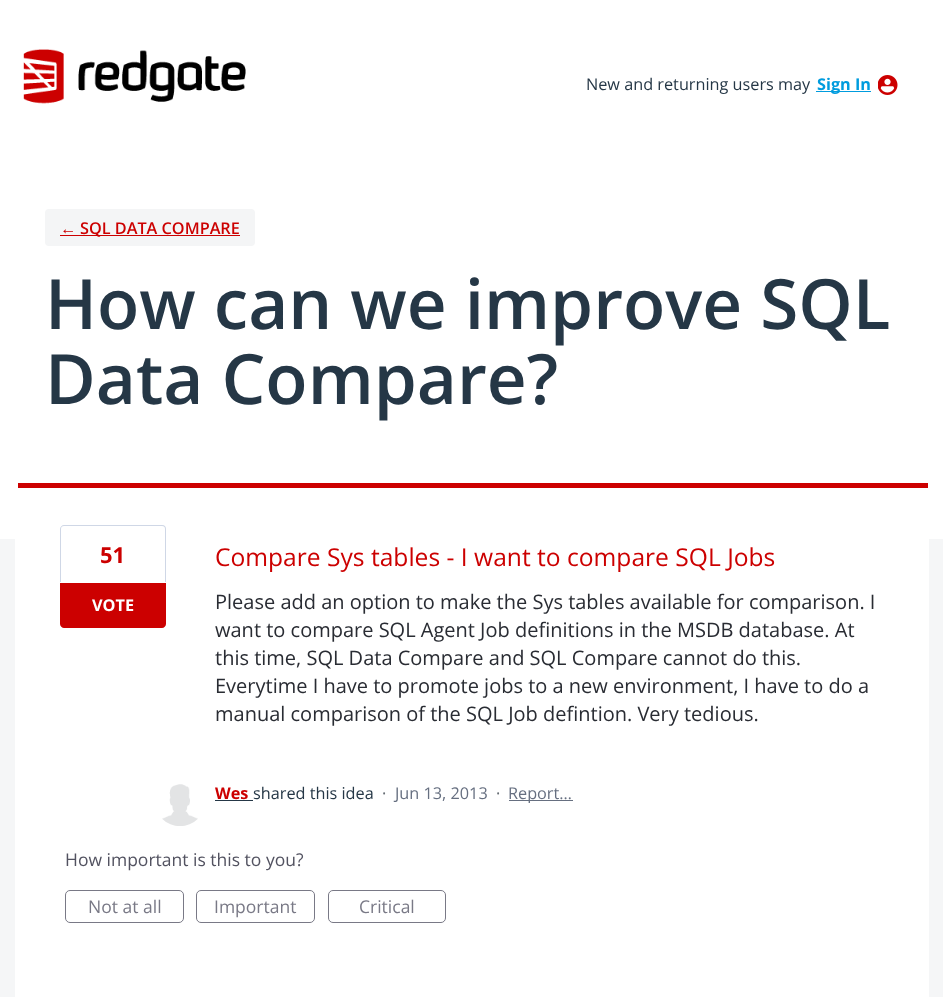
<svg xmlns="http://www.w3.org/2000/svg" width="943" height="997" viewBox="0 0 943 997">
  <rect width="100%" height="100%" fill="#fff"/>
  <image x="23" y="49" width="223" height="55" href="img/1.png"/>
  <path d="M816 91h55v1H816z" fill="#009cde"/>
  <image x="878" y="75" width="20" height="20" href="img/2.png"/>
  <rect x="45" y="209" width="210" height="37" rx="4" fill="#f4f5f6"/>
  <path d="M60 235h180v1H60z" fill="#c00"/>
  <path d="M0 539h943v458H0z" fill="#f5f6f7"/>
  <path d="M19 488H929V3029C929 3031 927 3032 925 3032H19C17 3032 15 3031 15 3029V488Z" fill="#fff"/>
  <path d="M18 483h910v5H18z" fill="#c00"/>
  <path d="M64 525H162C165 525 166 527 166 529V582H60V529C60 527 62 525 64 525ZM64 526H162C164 526 165 527 165 529V582H61V529C61 527 62 526 64 526Z" fill="#cfd7e6" fill-rule="evenodd"/>
  <path d="M60 583H166V624C166 626 164 628 162 628H64C62 628 60 626 60 624Z" fill="#c00"/>
  <image x="162" y="784" width="36" height="42" href="img/3.png"/>
  <path d="M215 800h38v1H215z" fill="#253746"/>
  <path d="M509 800h64v1H509z" fill="#666f80"/>
  <rect x="65.5" y="890.5" width="118" height="32" rx="4.5" fill="none" stroke="#797986"/>
  <rect x="196.5" y="890.5" width="118" height="32" rx="4.5" fill="none" stroke="#797986"/>
  <rect x="328.5" y="890.5" width="117" height="32" rx="4.5" fill="none" stroke="#797986"/>
  <text x="586" y="90" font-family="Open Sans" font-size="16.25" fill="#253746">New and returning users may</text>
  <text x="817" y="90" font-family="Open Sans" font-size="16.25" font-weight="bold" fill="#009cde">Sign In</text>
  <text x="60" y="234" font-family="Liberation Sans" font-size="16.25" font-weight="bold" fill="#c00">←</text>
  <text x="80" y="234" font-family="Open Sans" font-size="16.25" font-weight="600" fill="#c00">SQL DATA COMPARE</text>
  <g font-family="Open Sans" font-size="69.25" font-weight="600" fill="#253746">
    <text x="45" y="329">How can we improve SQL</text>
    <text x="45" y="404">Data Compare?</text>
  </g>
  <text x="100" y="563" font-family="Open Sans" font-size="22" font-weight="bold" fill="#c00">51</text>
  <text x="92" y="611" font-family="Open Sans" font-size="16.25" font-weight="bold" fill="#fff">VOTE</text>
  <text x="215" y="566" font-family="Open Sans" font-size="24.6" fill="#c00">Compare Sys tables - I want to compare SQL Jobs</text>
  <g font-family="Open Sans" font-size="20" fill="#292c33">
    <text x="215" y="609">Please add an option to make the Sys tables available for comparison. I</text>
    <text x="215" y="637">want to compare SQL Agent Job definitions in the MSDB database. At</text>
    <text x="215" y="665">this time, SQL Data Compare and SQL Compare cannot do this.</text>
    <text x="215" y="693">Everytime I have to promote jobs to a new environment, I have to do a</text>
    <text x="215" y="721">manual comparison of the SQL Job defintion. Very tedious.</text>
  </g>
  <text x="215" y="799" font-family="Open Sans" font-size="16.25" font-weight="bold" fill="#c00">Wes</text>
  <text x="253" y="799" font-family="Open Sans" font-size="16.25" fill="#253746">shared this idea</text>
  <text x="382" y="799" font-family="Open Sans" font-size="16.25" fill="#646b72">·</text>
  <text x="395" y="799" font-family="Open Sans" font-size="16.25" fill="#666f80">Jun 13, 2013</text>
  <text x="496" y="799" font-family="Open Sans" font-size="16.25" fill="#646b72">·</text>
  <text x="508" y="799" font-family="Open Sans" font-size="16.25" fill="#666f80">Report…</text>
  <text x="65" y="866" font-family="Open Sans" font-size="17.5" fill="#525260">How important is this to you?</text>
  <g font-family="Open Sans" font-size="17.5" fill="#797986">
    <text x="88" y="913">Not at all</text>
    <text x="214" y="913">Important</text>
    <text x="359" y="913">Critical</text>
  </g>
</svg>
